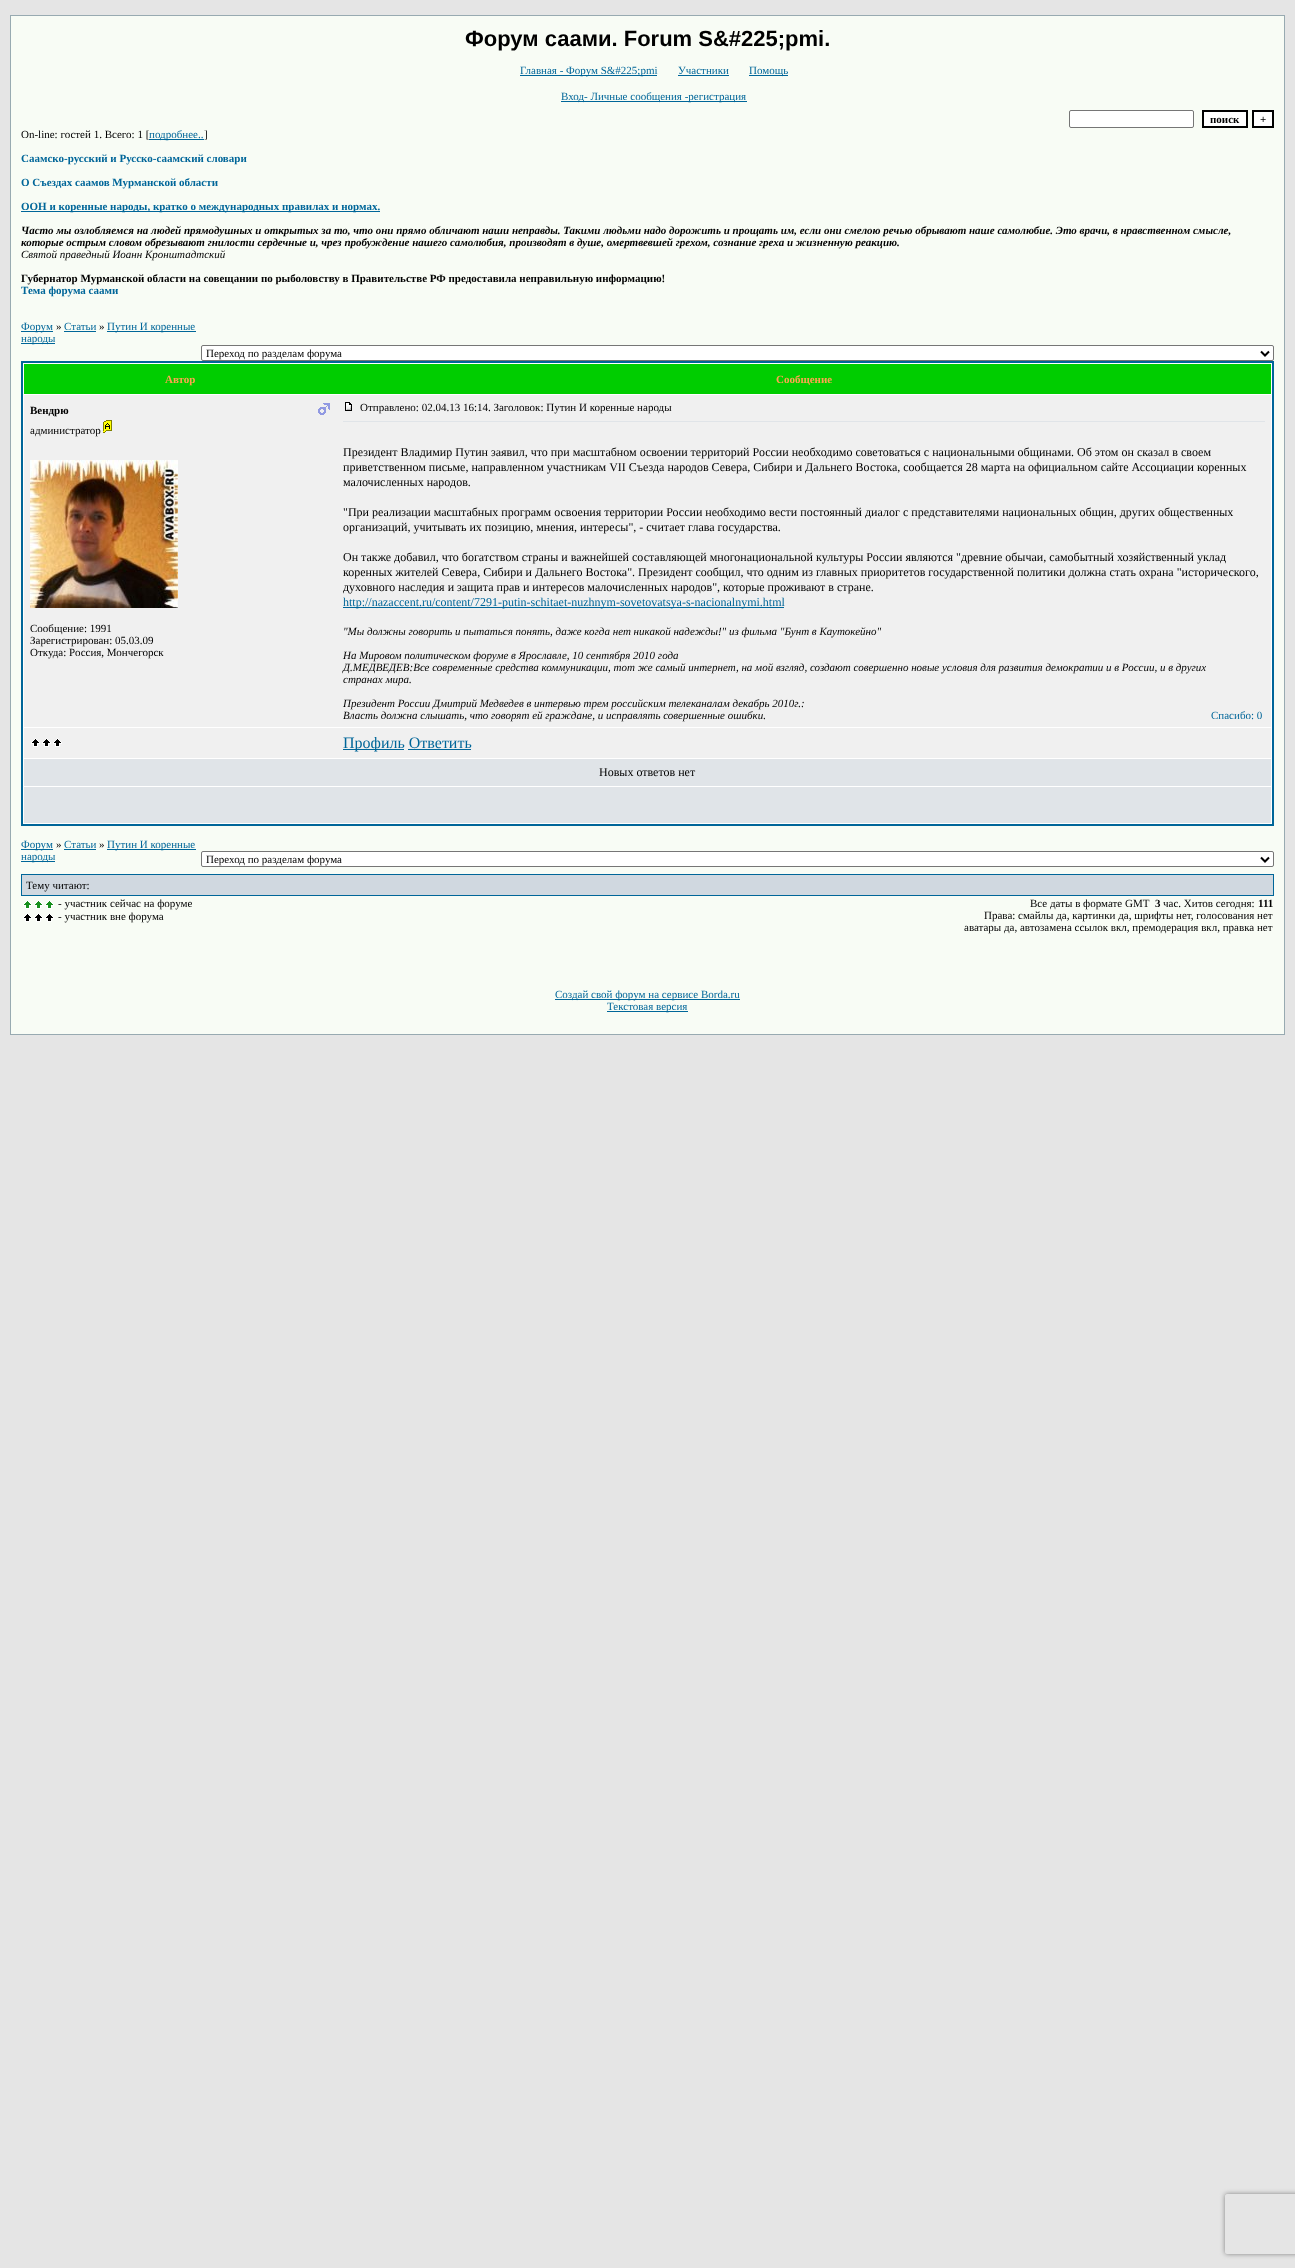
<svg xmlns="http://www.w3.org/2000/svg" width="1295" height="2268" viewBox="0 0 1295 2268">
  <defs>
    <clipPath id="clip1"><path d="M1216 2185H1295V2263H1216ZM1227 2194H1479C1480 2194 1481 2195 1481 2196V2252C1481 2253 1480 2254 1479 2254H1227C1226 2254 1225 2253 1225 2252V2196C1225 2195 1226 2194 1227 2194Z" clip-rule="evenodd"/></clipPath>
  </defs>
  <rect width="100%" height="100%" fill="#e5e5e5"/>
  <path d="M10 15h1275v1020H10z" fill="#98aab1"/>
  <path d="M11 16h1273v1018H11z" fill="#f8fcf5"/>
  <path d="M520 75h137v1H520z" fill="#069"/>
  <path d="M678 75h51v1H678z" fill="#069"/>
  <path d="M749 75h39v1H749z" fill="#069"/>
  <path d="M561 101h186v1H561z" fill="#069"/>
  <rect x="1069.5" y="110.5" width="124" height="17" rx="1.5" fill="#fff" stroke="#767676"/>
  <path d="M1203 111h44v16H1203z" fill="#fff" stroke="#000" stroke-width="2"/>
  <path d="M1253 111h20v16H1253z" fill="#fff" stroke="#000" stroke-width="2"/>
  <path d="M149 139h55v1H149z" fill="#069"/>
  <path d="M21 211h359v1H21z" fill="#069"/>
  <path d="M21 331h32v1H21z" fill="#069"/>
  <path d="M64 331h32v1H64z" fill="#069"/>
  <path d="M107 331h89v1H107z" fill="#069"/>
  <path d="M21 343h34v1H21z" fill="#069"/>
  <rect x="201.5" y="345.5" width="1072" height="15" rx="1.5" fill="#fff" stroke="#767676"/>
  <path d="M1261 351.5L1265 355.5L1269 351.5" fill="none" stroke="#000" stroke-width="2"/>
  <path d="M21 361h1253v465H21z" fill="#069"/>
  <path d="M23 363h1249v461H23z" fill="#fff"/>
  <path d="M24 364h1247v30H24z" fill="#00cd00"/>
  <path d="M24 395h1247v332H24z" fill="#f0f0f0"/>
  <image x="318" y="403" width="12" height="12" href="img/1.png"/>
  <image x="103" y="420" width="9" height="13" href="img/2.png"/>
  <image x="30" y="460" width="148" height="148" href="img/3.png"/>
  <image x="345" y="402" width="7" height="9" href="img/4.png"/>
  <path d="M343 421h922v1H343z" fill="#e0e4e8"/>
  <path d="M343 607h441v1H343z" fill="#069"/>
  <path d="M24 728h1247v30H24z" fill="#f0f0f0"/>
  <image x="31" y="738" width="31" height="9" href="img/5.png"/>
  <path d="M343 749h61v1H343z" fill="#069"/>
  <path d="M408 749h63v1H408z" fill="#069"/>
  <path d="M24 759h1247v27H24z" fill="#e0e4e8"/>
  <path d="M24 787h1247v36H24z" fill="#e0e4e8"/>
  <path d="M21 849h32v1H21z" fill="#069"/>
  <path d="M64 849h32v1H64z" fill="#069"/>
  <path d="M107 849h89v1H107z" fill="#069"/>
  <path d="M21 861h34v1H21z" fill="#069"/>
  <rect x="201.5" y="851.5" width="1072" height="15" rx="1.5" fill="#fff" stroke="#767676"/>
  <path d="M1261 857.5L1265 861.5L1269 857.5" fill="none" stroke="#000" stroke-width="2"/>
  <path d="M21 874h1253v22H21z" fill="#069"/>
  <path d="M22 875h1251v20H22z" fill="#d0d8e0"/>
  <image x="23" y="900" width="31" height="9" href="img/6.png"/>
  <image x="23" y="913" width="31" height="9" href="img/7.png"/>
  <path d="M555 999h185v1H555z" fill="#069"/>
  <path d="M607 1011h81v1H607z" fill="#069"/>
  <g clip-path="url(#clip1)">
    <rect x="1225" y="2194" width="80" height="60" rx="2" fill="#808080" filter="blur(2.5px)"/>
  </g>
  <text x="465" y="46" font-family="Liberation Sans" font-size="22" font-weight="bold" fill="#000">Форум саами. Forum S&amp;#225;pmi.</text>
  <g font-family="Liberation Serif" font-size="11" fill="#069">
    <text x="520" y="74">Главная - Форум S&amp;#225;pmi</text>
    <text x="678" y="74">Участники</text>
    <text x="749" y="74">Помощь</text>
    <text x="561" y="100">Вход- Личные сообщения -регистрация</text>
  </g>
  <g font-family="Liberation Serif" font-size="11" font-weight="bold" fill="#000">
    <text x="1210" y="123">поиск</text>
    <text x="1260" y="123">+</text>
  </g>
  <text x="21" y="138" font-family="Liberation Serif" font-size="11" fill="#000">On-line: гостей 1. Всего: 1 [</text>
  <text x="149" y="138" font-family="Liberation Serif" font-size="11" fill="#069">подробнее..</text>
  <text x="204" y="138" font-family="Liberation Serif" font-size="11" fill="#000">]</text>
  <g font-family="Liberation Serif" font-size="11" font-weight="bold" fill="#069">
    <text x="21" y="162">Саамско-русский и Русско-саамский словари</text>
    <text x="21" y="186">О Съездах саамов Мурманской области</text>
    <text x="21" y="210">ООН и коренные народы, кратко о международных правилах и нормах.</text>
  </g>
  <g font-family="Liberation Serif" font-size="11" font-weight="bold" font-style="italic" fill="#000">
    <text x="21" y="234">Часто мы озлобляемся на людей прямодушных и открытых за то, что они прямо обличают наши неправды. Такими людьми надо дорожить и прощать им, если они смелою речью обрывают наше самолюбие. Это врачи, в нравственном смысле,</text>
    <text x="21" y="246">которые острым словом обрезывают гнилости сердечные и, чрез пробуждение нашего самолюбия, производят в душе, омертвевшей грехом, сознание греха и жизненную реакцию.</text>
  </g>
  <text x="21" y="258" font-family="Liberation Serif" font-size="11" font-style="italic" fill="#000">Святой праведный Иоанн Кронштадтский</text>
  <text x="21" y="282" font-family="Liberation Serif" font-size="11" font-weight="bold" fill="#000">Губернатор Мурманской области на совещании по рыболовству в Правительстве РФ предоставила неправильную информацию!</text>
  <text x="21" y="294" font-family="Liberation Serif" font-size="11" font-weight="bold" fill="#069">Тема форума саами</text>
  <text x="21" y="330" font-family="Liberation Serif" font-size="11" fill="#069">Форум</text>
  <text x="56" y="330" font-family="Liberation Serif" font-size="11" fill="#000">»</text>
  <text x="64" y="330" font-family="Liberation Serif" font-size="11" fill="#069">Статьи</text>
  <text x="99" y="330" font-family="Liberation Serif" font-size="11" fill="#000">»</text>
  <g font-family="Liberation Serif" font-size="11" fill="#069">
    <text x="107" y="330">Путин И коренные</text>
    <text x="21" y="342">народы</text>
  </g>
  <text x="206" y="357" font-family="Liberation Serif" font-size="11" fill="#000">Переход по разделам форума</text>
  <g font-family="Liberation Serif" font-size="11" font-weight="bold" fill="#ffa450">
    <text x="165" y="383">Автор</text>
    <text x="776" y="383">Сообщение</text>
  </g>
  <text x="30" y="414" font-family="Liberation Serif" font-size="11" font-weight="bold" fill="#000">Вендрю</text>
  <g font-family="Liberation Serif" font-size="11" fill="#000">
    <text x="30" y="434">администратор</text>
    <text x="30" y="632">Сообщение: 1991</text>
    <text x="30" y="644">Зарегистрирован: 05.03.09</text>
    <text x="30" y="656">Откуда: Россия, Мончегорск</text>
    <text x="360" y="411">Отправлено: 02.04.13 16:14. Заголовок: Путин И коренные народы</text>
  </g>
  <g font-family="Liberation Serif" font-size="12" fill="#000">
    <text x="343" y="456">Президент Владимир Путин заявил, что при масштабном освоении территорий России необходимо советоваться с национальными общинами. Об этом он сказал в своем</text>
    <text x="343" y="471">приветственном письме, направленном участникам VII Съезда народов Севера, Сибири и Дальнего Востока, сообщается 28 марта на официальном сайте Ассоциации коренных</text>
    <text x="343" y="486">малочисленных народов.</text>
    <text x="343" y="516">"При реализации масштабных программ освоения территории России необходимо вести постоянный диалог с представителями национальных общин, других общественных</text>
    <text x="343" y="531">организаций, учитывать их позицию, мнения, интересы", - считает глава государства.</text>
    <text x="343" y="561">Он также добавил, что богатством страны и важнейшей составляющей многонациональной культуры России являются "древние обычаи, самобытный хозяйственный уклад</text>
    <text x="343" y="576">коренных жителей Севера, Сибири и Дальнего Востока". Президент сообщил, что одним из главных приоритетов государственной политики должна стать охрана "исторического,</text>
    <text x="343" y="591">духовного наследия и защита прав и интересов малочисленных народов", которые проживают в стране.</text>
  </g>
  <text x="343" y="606" font-family="Liberation Serif" font-size="12" fill="#069">http://nazaccent.ru/content/7291-putin-schitaet-nuzhnym-sovetovatsya-s-nacionalnymi.html</text>
  <g font-family="Liberation Serif" font-size="11" font-style="italic" fill="#000">
    <text x="343" y="635">"Мы должны говорить и пытаться понять, даже когда нет никакой надежды!" из фильма "Бунт в Каутокейно"</text>
    <text x="343" y="659">На Мировом политическом форуме в Ярославле, 10 сентября 2010 года</text>
    <text x="343" y="671">Д.МЕДВЕДЕВ:Все современные средства коммуникации, тот же самый интернет, на мой взгляд, создают совершенно новые условия для развития демократии и в России, и в других</text>
    <text x="343" y="683">странах мира.</text>
    <text x="343" y="707">Президент России Дмитрий Медведев в интервью трем российским телеканалам декабрь 2010г.:</text>
    <text x="343" y="719">Власть должна слышать, что говорят ей граждане, и исправлять совершенные ошибки.</text>
  </g>
  <text x="1211" y="719" font-family="Liberation Serif" font-size="11" fill="#069">Спасибо: 0</text>
  <text x="343" y="748" font-family="Liberation Serif" font-size="16" fill="#069">Профиль Ответить</text>
  <text x="599" y="776" font-family="Liberation Serif" font-size="12" fill="#000">Новых ответов нет</text>
  <text x="21" y="848" font-family="Liberation Serif" font-size="11" fill="#069">Форум</text>
  <text x="56" y="848" font-family="Liberation Serif" font-size="11" fill="#000">»</text>
  <text x="64" y="848" font-family="Liberation Serif" font-size="11" fill="#069">Статьи</text>
  <text x="99" y="848" font-family="Liberation Serif" font-size="11" fill="#000">»</text>
  <g font-family="Liberation Serif" font-size="11" fill="#069">
    <text x="107" y="848">Путин И коренные</text>
    <text x="21" y="860">народы</text>
  </g>
  <g font-family="Liberation Serif" font-size="11" fill="#000">
    <text x="206" y="863">Переход по разделам форума</text>
    <text x="26" y="889">Тему читают:</text>
    <text x="58" y="907">- участник сейчас на форуме</text>
    <text x="58" y="920">- участник вне форума</text>
    <text x="1030" y="907">Все даты в формате GMT</text>
  </g>
  <text x="1155" y="907" font-family="Liberation Serif" font-size="11" font-weight="bold" fill="#000">3</text>
  <text x="1163" y="907" font-family="Liberation Serif" font-size="11" fill="#000">час. Хитов сегодня:</text>
  <text x="1258" y="907" font-family="Liberation Serif" font-size="11" font-weight="bold" fill="#000">111</text>
  <g font-family="Liberation Serif" font-size="11" fill="#000">
    <text x="984" y="919">Права: смайлы да, картинки да, шрифты нет, голосования нет</text>
    <text x="964" y="931">аватары да, автозамена ссылок вкл, премодерация вкл, правка нет</text>
  </g>
  <g font-family="Liberation Serif" font-size="11" fill="#069">
    <text x="555" y="998">Создай свой форум на сервисе Borda.ru</text>
    <text x="607" y="1010">Текстовая версия</text>
  </g>
</svg>
